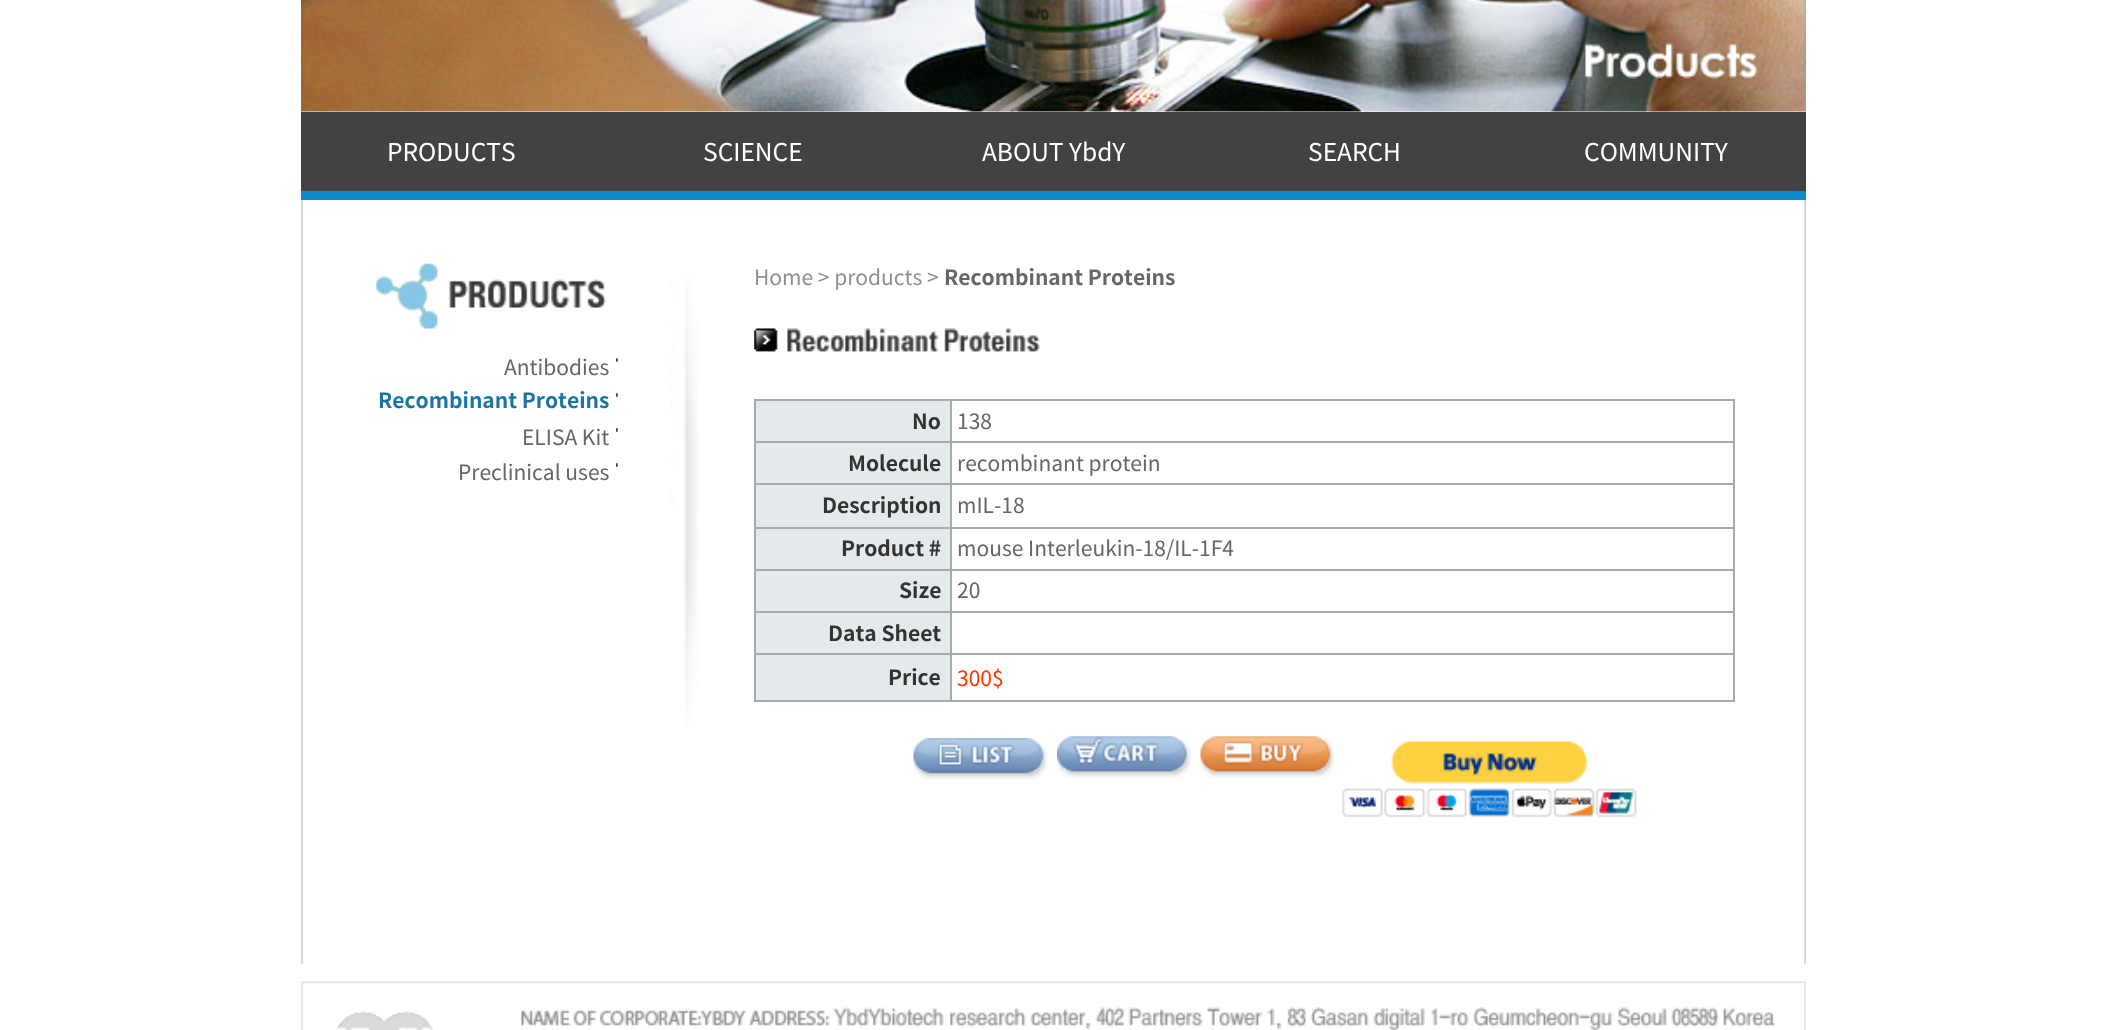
<svg xmlns="http://www.w3.org/2000/svg" width="2107" height="1030" viewBox="0 0 2107 1030">
  <rect width="100%" height="100%" fill="#fff"/>
  <image x="301" y="111" width="1505" height="130" href="img/2.png"/>
  <image x="301" y="0" width="1505" height="112" href="img/1.png"/>
  <path d="M301 112h1505v79H301z" fill="#424242"/>
  <path d="M301 191h1505v9H301z" fill="#0c8acd"/>
  <image x="301" y="241" width="1505" height="723" href="img/3.png"/>
  <image x="669" y="277" width="30" height="452" href="img/4.png"/>
  <image x="375" y="263" width="231" height="66" href="img/5.png"/>
  <image x="616" y="358" width="2" height="4" href="img/6.png"/>
  <image x="616" y="393" width="2" height="4" href="img/6.png"/>
  <image x="616" y="428" width="2" height="4" href="img/6.png"/>
  <image x="616" y="463" width="2" height="4" href="img/6.png"/>
  <image x="754" y="328" width="286" height="24" href="img/7.png"/>
  <path d="M756 401h194v40H756z" fill="#e4e9ec"/>
  <path d="M950 399h784v2H950z" fill="#a7a9ac"/>
  <path d="M950 441h784v2H950z" fill="#a7a9ac"/>
  <path d="M950 483h784v2H950z" fill="#a7a9ac"/>
  <path d="M950 527h784v2H950z" fill="#a7a9ac"/>
  <path d="M950 569h784v2H950z" fill="#a7a9ac"/>
  <path d="M950 611h784v2H950z" fill="#a7a9ac"/>
  <path d="M950 653h784v2H950z" fill="#a7a9ac"/>
  <path d="M1733 653h2v49H1733z" fill="#a7a9ac"/>
  <path d="M950 700h784v2H950z" fill="#a7a9ac"/>
  <path d="M950 653h2v49H950z" fill="#a7a9ac"/>
  <path d="M754 653h198v2H754z" fill="#a7a9ac"/>
  <path d="M950 611h2v44H950z" fill="#a7a9ac"/>
  <path d="M754 611h198v2H754z" fill="#a7a9ac"/>
  <path d="M950 569h2v44H950z" fill="#a7a9ac"/>
  <path d="M754 569h198v2H754z" fill="#a7a9ac"/>
  <path d="M950 527h2v44H950z" fill="#a7a9ac"/>
  <path d="M754 527h198v2H754z" fill="#a7a9ac"/>
  <path d="M950 483h2v46H950z" fill="#a7a9ac"/>
  <path d="M754 483h198v2H754z" fill="#a7a9ac"/>
  <path d="M950 441h2v44H950z" fill="#a7a9ac"/>
  <path d="M754 441h198v2H754z" fill="#a7a9ac"/>
  <path d="M950 399h2v44H950z" fill="#a7a9ac"/>
  <path d="M754 399h198v2H754z" fill="#a7a9ac"/>
  <path d="M754 700h198v2H754z" fill="#a7a9ac"/>
  <path d="M754 653h2v49H754z" fill="#a7a9ac"/>
  <path d="M754 611h2v44H754z" fill="#a7a9ac"/>
  <path d="M754 569h2v44H754z" fill="#a7a9ac"/>
  <path d="M754 527h2v44H754z" fill="#a7a9ac"/>
  <path d="M754 483h2v46H754z" fill="#a7a9ac"/>
  <path d="M754 441h2v44H754z" fill="#a7a9ac"/>
  <path d="M754 399h2v44H754z" fill="#a7a9ac"/>
  <path d="M1733 611h2v44H1733z" fill="#a7a9ac"/>
  <path d="M1733 569h2v44H1733z" fill="#a7a9ac"/>
  <path d="M1733 527h2v44H1733z" fill="#a7a9ac"/>
  <path d="M1733 483h2v46H1733z" fill="#a7a9ac"/>
  <path d="M1733 441h2v44H1733z" fill="#a7a9ac"/>
  <path d="M1733 399h2v44H1733z" fill="#a7a9ac"/>
  <path d="M756 443h194v40H756z" fill="#e4e9ec"/>
  <path d="M756 485h194v42H756z" fill="#e4e9ec"/>
  <path d="M756 529h194v40H756z" fill="#e4e9ec"/>
  <path d="M756 571h194v40H756z" fill="#e4e9ec"/>
  <path d="M756 613h194v40H756z" fill="#e4e9ec"/>
  <path d="M756 655h194v45H756z" fill="#e4e9ec"/>
  <image x="913" y="738" width="135" height="42" href="img/8.png"/>
  <image x="1057" y="736" width="134" height="42" href="img/9.png"/>
  <image x="1200" y="736" width="135" height="42" href="img/10.png"/>
  <image x="1342" y="741" width="295" height="77" href="img/11.png"/>
  <image x="301" y="981" width="1505" height="49" href="img/12.png"/>
  <g font-family="Noto Sans KR" font-size="24.5" fill="#fff">
    <text x="387" y="161">PRODUCTS</text>
    <text x="703" y="161">SCIENCE</text>
    <text x="982" y="161">ABOUT YbdY</text>
    <text x="1308" y="161">SEARCH</text>
    <text x="1584" y="161">COMMUNITY</text>
  </g>
  <text x="504" y="375" font-family="Noto Sans KR" font-size="21" fill="#666">Antibodies</text>
  <text x="378" y="408" font-family="Noto Sans KR" font-size="21" font-weight="bold" fill="#1b75a3">Recombinant Proteins</text>
  <g font-family="Noto Sans KR" font-size="21" fill="#666">
    <text x="522" y="445">ELISA Kit</text>
    <text x="458" y="480">Preclinical uses</text>
  </g>
  <text x="754" y="285" font-family="Noto Sans KR" font-size="21" fill="#908f8f">Home &gt; products &gt;</text>
  <text x="944" y="285" font-family="Noto Sans KR" font-size="21" font-weight="bold" fill="#666">Recombinant Proteins</text>
  <text x="912" y="429" font-family="Noto Sans KR" font-size="21" font-weight="bold" fill="#333">No</text>
  <text x="957" y="429" font-family="Noto Sans KR" font-size="21" fill="#666">138</text>
  <text x="848" y="471" font-family="Noto Sans KR" font-size="21" font-weight="bold" fill="#333">Molecule</text>
  <text x="957" y="471" font-family="Noto Sans KR" font-size="21" fill="#666">recombinant protein</text>
  <text x="822" y="513" font-family="Noto Sans KR" font-size="21" font-weight="bold" fill="#333">Description</text>
  <text x="957" y="513" font-family="Noto Sans KR" font-size="21" fill="#666">mIL-18</text>
  <text x="841" y="556" font-family="Noto Sans KR" font-size="21" font-weight="bold" fill="#333">Product #</text>
  <text x="957" y="556" font-family="Noto Sans KR" font-size="21" fill="#666">mouse Interleukin-18/IL-1F4</text>
  <text x="899" y="598" font-family="Noto Sans KR" font-size="21" font-weight="bold" fill="#333">Size</text>
  <text x="957" y="598" font-family="Noto Sans KR" font-size="21" fill="#666">20</text>
  <g font-family="Noto Sans KR" font-size="21" font-weight="bold" fill="#333">
    <text x="828" y="641">Data Sheet</text>
    <text x="888" y="685">Price</text>
  </g>
  <text x="957" y="686" font-family="Noto Sans KR" font-size="21" fill="#f30">300$</text>
</svg>
